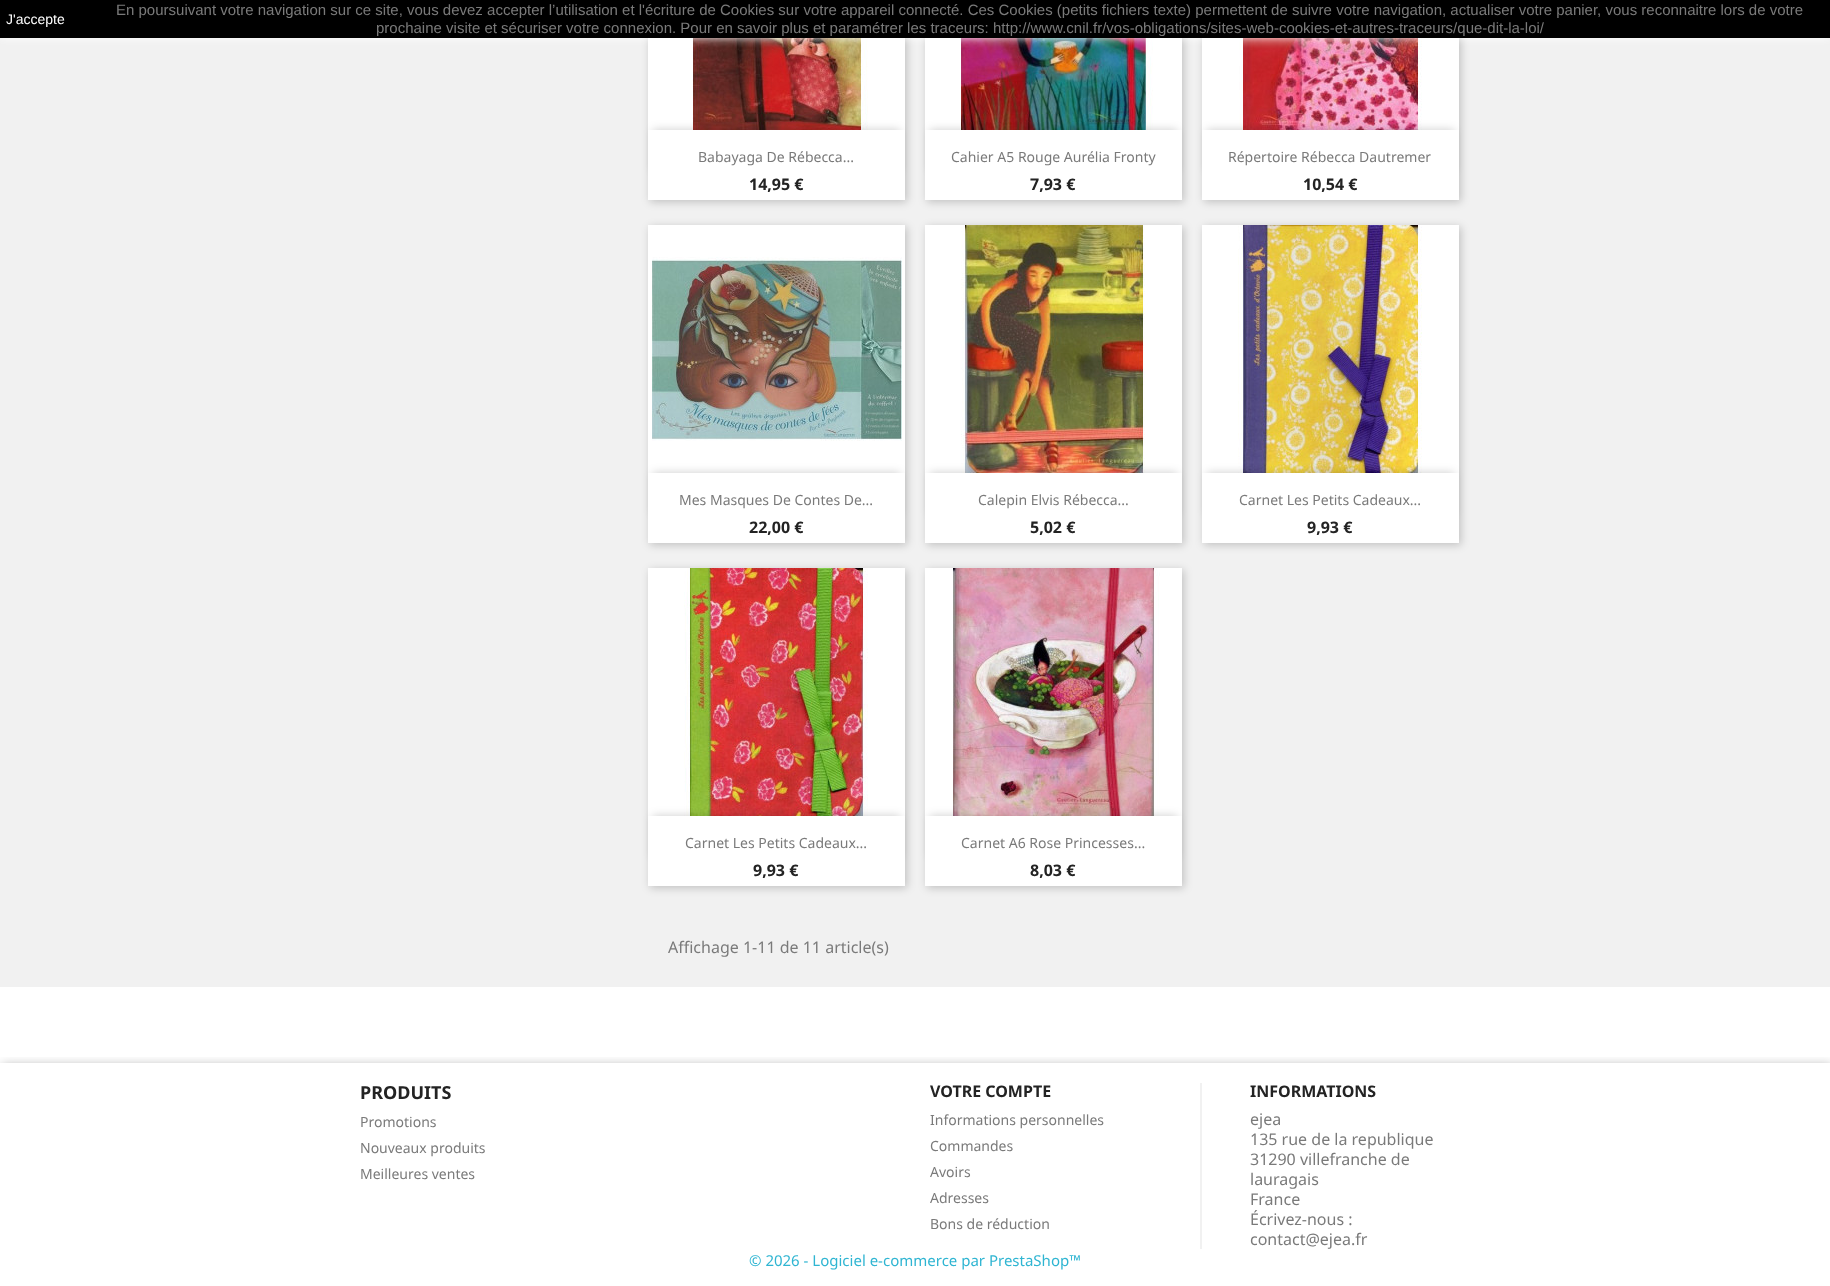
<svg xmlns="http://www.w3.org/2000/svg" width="1830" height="1286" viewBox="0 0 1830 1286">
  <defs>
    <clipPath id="clip1"><path d="M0 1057h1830v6H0z"/></clipPath>
  </defs>
  <rect width="100%" height="100%" fill="#fff"/>
  <g clip-path="url(#clip1)">
    <path d="M2 1065h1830v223H2z" fill="#0000004d" filter="blur(5.5px)"/>
  </g>
  <path d="M0 38h1830v949H0z" fill="#f1f1f1"/>
  <path d="M650 -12h257v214H650z" fill="#00000033" filter="blur(4px)"/>
  <path d="M648 38h257v92H648z" fill="#fff"/>
  <image x="692" y="38" width="176" height="92" href="img/1.png"/>
  <path d="M927 -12h257v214H927z" fill="#00000033" filter="blur(4px)"/>
  <path d="M925 38h257v92H925z" fill="#fff"/>
  <image x="961" y="38" width="192" height="92" href="img/2.png"/>
  <path d="M1204 -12h257v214H1204z" fill="#00000033" filter="blur(4px)"/>
  <path d="M1202 38h257v92H1202z" fill="#fff"/>
  <image x="1239" y="38" width="183" height="92" href="img/3.png"/>
  <path d="M0 0h1830v38H0z" fill="#fff" filter="blur(5px)"/>
  <path d="M0 0h1830v38H0z" fill="#000"/>
  <path d="M1200 1083h2v166H1200z" fill="#f1f1f1"/>
  <path d="M653 130h247v40H653z" fill="#00000033" filter="blur(5px)"/>
  <path d="M648 130h257v70H648z" fill="#fff"/>
  <path d="M930 130h247v40H930z" fill="#00000033" filter="blur(5px)"/>
  <path d="M925 130h257v70H925z" fill="#fff"/>
  <path d="M1207 130h247v40H1207z" fill="#00000033" filter="blur(5px)"/>
  <path d="M1202 130h257v70H1202z" fill="#fff"/>
  <path d="M650 227h257v318H650z" fill="#00000033" filter="blur(4px)"/>
  <path d="M648 225h257v248H648z" fill="#fff"/>
  <image x="652" y="257" width="250" height="184" href="img/4.png"/>
  <path d="M653 473h247v40H653z" fill="#00000033" filter="blur(5px)"/>
  <path d="M648 473h257v70H648z" fill="#fff"/>
  <path d="M927 227h257v318H927z" fill="#00000033" filter="blur(4px)"/>
  <path d="M925 225h257v248H925z" fill="#fff"/>
  <image x="961" y="225" width="184" height="248" href="img/5.png"/>
  <path d="M930 473h247v40H930z" fill="#00000033" filter="blur(5px)"/>
  <path d="M925 473h257v70H925z" fill="#fff"/>
  <path d="M1204 227h257v318H1204z" fill="#00000033" filter="blur(4px)"/>
  <path d="M1202 225h257v248H1202z" fill="#fff"/>
  <image x="1238" y="225" width="184" height="248" href="img/6.png"/>
  <path d="M1207 473h247v40H1207z" fill="#00000033" filter="blur(5px)"/>
  <path d="M1202 473h257v70H1202z" fill="#fff"/>
  <path d="M650 570h257v318H650z" fill="#00000033" filter="blur(4px)"/>
  <path d="M648 568h257v248H648z" fill="#fff"/>
  <image x="684" y="568" width="184" height="248" href="img/7.png"/>
  <path d="M653 816h247v40H653z" fill="#00000033" filter="blur(5px)"/>
  <path d="M648 816h257v70H648z" fill="#fff"/>
  <path d="M927 570h257v318H927z" fill="#00000033" filter="blur(4px)"/>
  <path d="M925 568h257v248H925z" fill="#fff"/>
  <image x="953" y="568" width="207" height="248" href="img/8.png"/>
  <path d="M930 816h247v40H930z" fill="#00000033" filter="blur(5px)"/>
  <path d="M925 816h257v70H925z" fill="#fff"/>
  <text x="6" y="24" font-family="Liberation Sans" font-size="14" fill="#fff">J'accepte</text>
  <g font-family="Liberation Sans" font-size="15" fill="#7a7a7a">
    <text x="116" y="15">En poursuivant votre navigation sur ce site, vous devez accepter l’utilisation et l'écriture de Cookies sur votre appareil connecté. Ces Cookies (petits fichiers texte) permettent de suivre votre navigation, actualiser votre panier, vous reconnaitre lors de votre</text>
    <text x="376" y="33">prochaine visite et sécuriser votre connexion. Pour en savoir plus et paramétrer les traceurs: http://www.cnil.fr/vos-obligations/sites-web-cookies-et-autres-traceurs/que-dit-la-loi/</text>
  </g>
  <text x="360" y="1099" font-family="Noto Sans" font-size="18" font-weight="bold" fill="#232323">PRODUITS</text>
  <g font-family="Noto Sans" font-size="14" fill="#7a7a7a">
    <text x="360" y="1127">Promotions</text>
    <text x="360" y="1153">Nouveaux produits</text>
    <text x="360" y="1179">Meilleures ventes</text>
  </g>
  <text x="930" y="1097" font-family="Noto Sans" font-size="16" font-weight="bold" fill="#232323">VOTRE COMPTE</text>
  <g font-family="Noto Sans" font-size="14" fill="#7a7a7a">
    <text x="930" y="1125">Informations personnelles</text>
    <text x="930" y="1151">Commandes</text>
    <text x="930" y="1177">Avoirs</text>
    <text x="930" y="1203">Adresses</text>
    <text x="930" y="1229">Bons de réduction</text>
  </g>
  <text x="1250" y="1097" font-family="Noto Sans" font-size="16" font-weight="bold" fill="#232323">INFORMATIONS</text>
  <g font-family="Noto Sans" font-size="16" fill="#7a7a7a">
    <text x="1250" y="1125">ejea</text>
    <text x="1250" y="1145">135 rue de la republique</text>
    <text x="1250" y="1165">31290 villefranche de</text>
    <text x="1250" y="1185">lauragais</text>
    <text x="1250" y="1205">France</text>
    <text x="1250" y="1225">Écrivez-nous :</text>
    <text x="1250" y="1245">contact@ejea.fr</text>
  </g>
  <text x="749" y="1266" font-family="Noto Sans" font-size="15" fill="#2fb5d2">© 2026 - Logiciel e-commerce par PrestaShop™</text>
  <text x="698" y="162" font-family="Noto Sans" font-size="14" fill="#7a7a7a">Babayaga De Rébecca...</text>
  <text x="749" y="190" font-family="Noto Sans" font-size="16" font-weight="bold" fill="#232323">14,95 €</text>
  <text x="951" y="162" font-family="Noto Sans" font-size="14" fill="#7a7a7a">Cahier A5 Rouge Aurélia Fronty</text>
  <text x="1030" y="190" font-family="Noto Sans" font-size="16" font-weight="bold" fill="#232323">7,93 €</text>
  <text x="1228" y="162" font-family="Noto Sans" font-size="14" fill="#7a7a7a">Répertoire Rébecca Dautremer</text>
  <text x="1303" y="190" font-family="Noto Sans" font-size="16" font-weight="bold" fill="#232323">10,54 €</text>
  <text x="679" y="505" font-family="Noto Sans" font-size="14" fill="#7a7a7a">Mes Masques De Contes De...</text>
  <text x="749" y="533" font-family="Noto Sans" font-size="16" font-weight="bold" fill="#232323">22,00 €</text>
  <text x="978" y="505" font-family="Noto Sans" font-size="14" fill="#7a7a7a">Calepin Elvis Rébecca...</text>
  <text x="1030" y="533" font-family="Noto Sans" font-size="16" font-weight="bold" fill="#232323">5,02 €</text>
  <text x="1239" y="505" font-family="Noto Sans" font-size="14" fill="#7a7a7a">Carnet Les Petits Cadeaux...</text>
  <text x="1307" y="533" font-family="Noto Sans" font-size="16" font-weight="bold" fill="#232323">9,93 €</text>
  <text x="685" y="848" font-family="Noto Sans" font-size="14" fill="#7a7a7a">Carnet Les Petits Cadeaux...</text>
  <text x="753" y="876" font-family="Noto Sans" font-size="16" font-weight="bold" fill="#232323">9,93 €</text>
  <text x="961" y="848" font-family="Noto Sans" font-size="14" fill="#7a7a7a">Carnet A6 Rose Princesses...</text>
  <text x="1030" y="876" font-family="Noto Sans" font-size="16" font-weight="bold" fill="#232323">8,03 €</text>
  <text x="668" y="953" font-family="Noto Sans" font-size="16" fill="#7a7a7a">Affichage 1-11 de 11 article(s)</text>
</svg>
